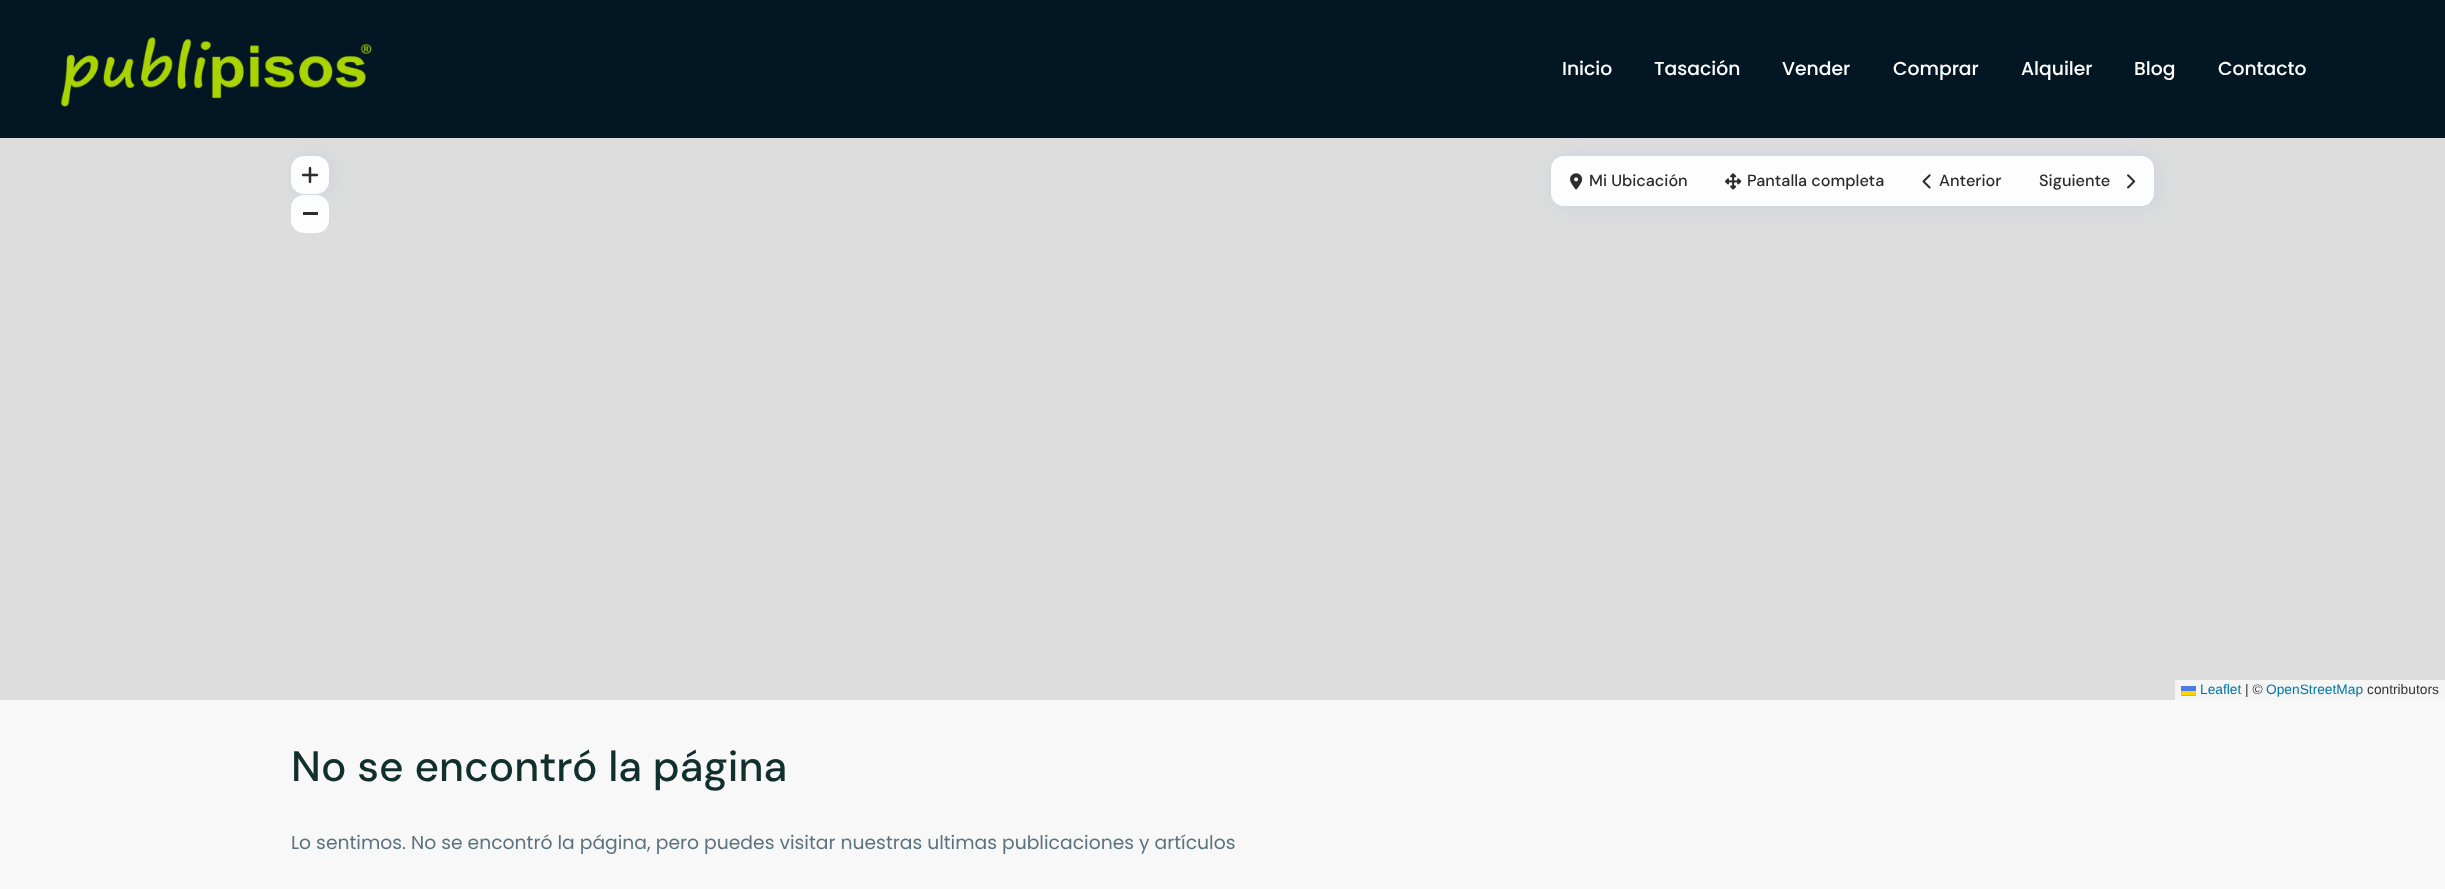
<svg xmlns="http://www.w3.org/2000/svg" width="2445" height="889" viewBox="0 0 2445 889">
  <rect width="100%" height="100%" fill="#f8f8f8"/>
  <path d="M0 138h2445v562H0z" fill="#ddd"/>
  <rect x="295" y="158" width="38" height="37" rx="13" fill="#006ee114" filter="blur(12.5px)"/>
  <rect x="1555" y="158" width="603" height="50" rx="13" fill="#006ee114" filter="blur(12.5px)"/>
  <path d="M0 0h2445v138H0z" fill="#021623"/>
  <image x="60" y="37" width="312" height="70" href="img/1.png"/>
  <rect x="291" y="156" width="38" height="38" rx="13" fill="#fdfdfd"/>
  <image x="301" y="166" width="18" height="18" href="img/2.png"/>
  <rect x="1551" y="156" width="603" height="50" rx="13" fill="#fdfdfd"/>
  <image x="1570" y="173" width="13" height="17" href="img/3.png"/>
  <image x="1725" y="173" width="17" height="17" href="img/4.png"/>
  <image x="1922" y="174" width="9" height="15" href="img/5.png"/>
  <image x="2127" y="174" width="9" height="15" href="img/6.png"/>
  <rect x="291" y="195" width="38" height="38" rx="13" fill="#fffffff2"/>
  <path d="M303 212h15v3H303z" fill="#2d2d2d"/>
  <path d="M2175 680h270v20H2175z" fill="#f5f5f5"/>
  <path d="M2181 686h15v5H2181z" fill="#4c7be1"/>
  <path d="M2181 691h15v4H2181z" fill="#ffd500"/>
  <path d="M2181 695h15v1H2181z" fill="#e0bc00"/>
  <g font-family="Poppins" font-size="18.75" font-weight="500" fill="#fff">
    <text x="1562" y="75">Inicio</text>
    <text x="1654" y="75">Tasación</text>
    <text x="1782" y="75">Vender</text>
    <text x="1893" y="75">Comprar</text>
    <text x="2021" y="75">Alquiler</text>
    <text x="2134" y="75">Blog</text>
    <text x="2218" y="75">Contacto</text>
  </g>
  <g font-family="DM Sans" font-size="16.25" font-weight="500" fill="#2b2b2b">
    <text x="1589" y="186">Mi Ubicación</text>
    <text x="1747" y="186">Pantalla completa</text>
    <text x="1939" y="186">Anterior</text>
    <text x="2039" y="186">Siguiente</text>
  </g>
  <text x="2200" y="694" font-family="Liberation Sans" font-size="13.75" fill="#0078a8">Leaflet</text>
  <text x="2245" y="694" font-family="Liberation Sans" font-size="13.75" fill="#333">| ©</text>
  <text x="2266" y="694" font-family="Liberation Sans" font-size="13.75" fill="#0078a8">OpenStreetMap</text>
  <text x="2367" y="694" font-family="Liberation Sans" font-size="13.75" fill="#333">contributors</text>
  <text x="291" y="781" font-family="DM Sans" font-size="42.5" font-weight="500" fill="#11302d">No se encontró la página</text>
  <text x="291" y="849" font-family="Poppins" font-size="18.75" fill="#5c727d">Lo sentimos. No se encontró la página, pero puedes visitar nuestras ultimas publicaciones y artículos</text>
</svg>
